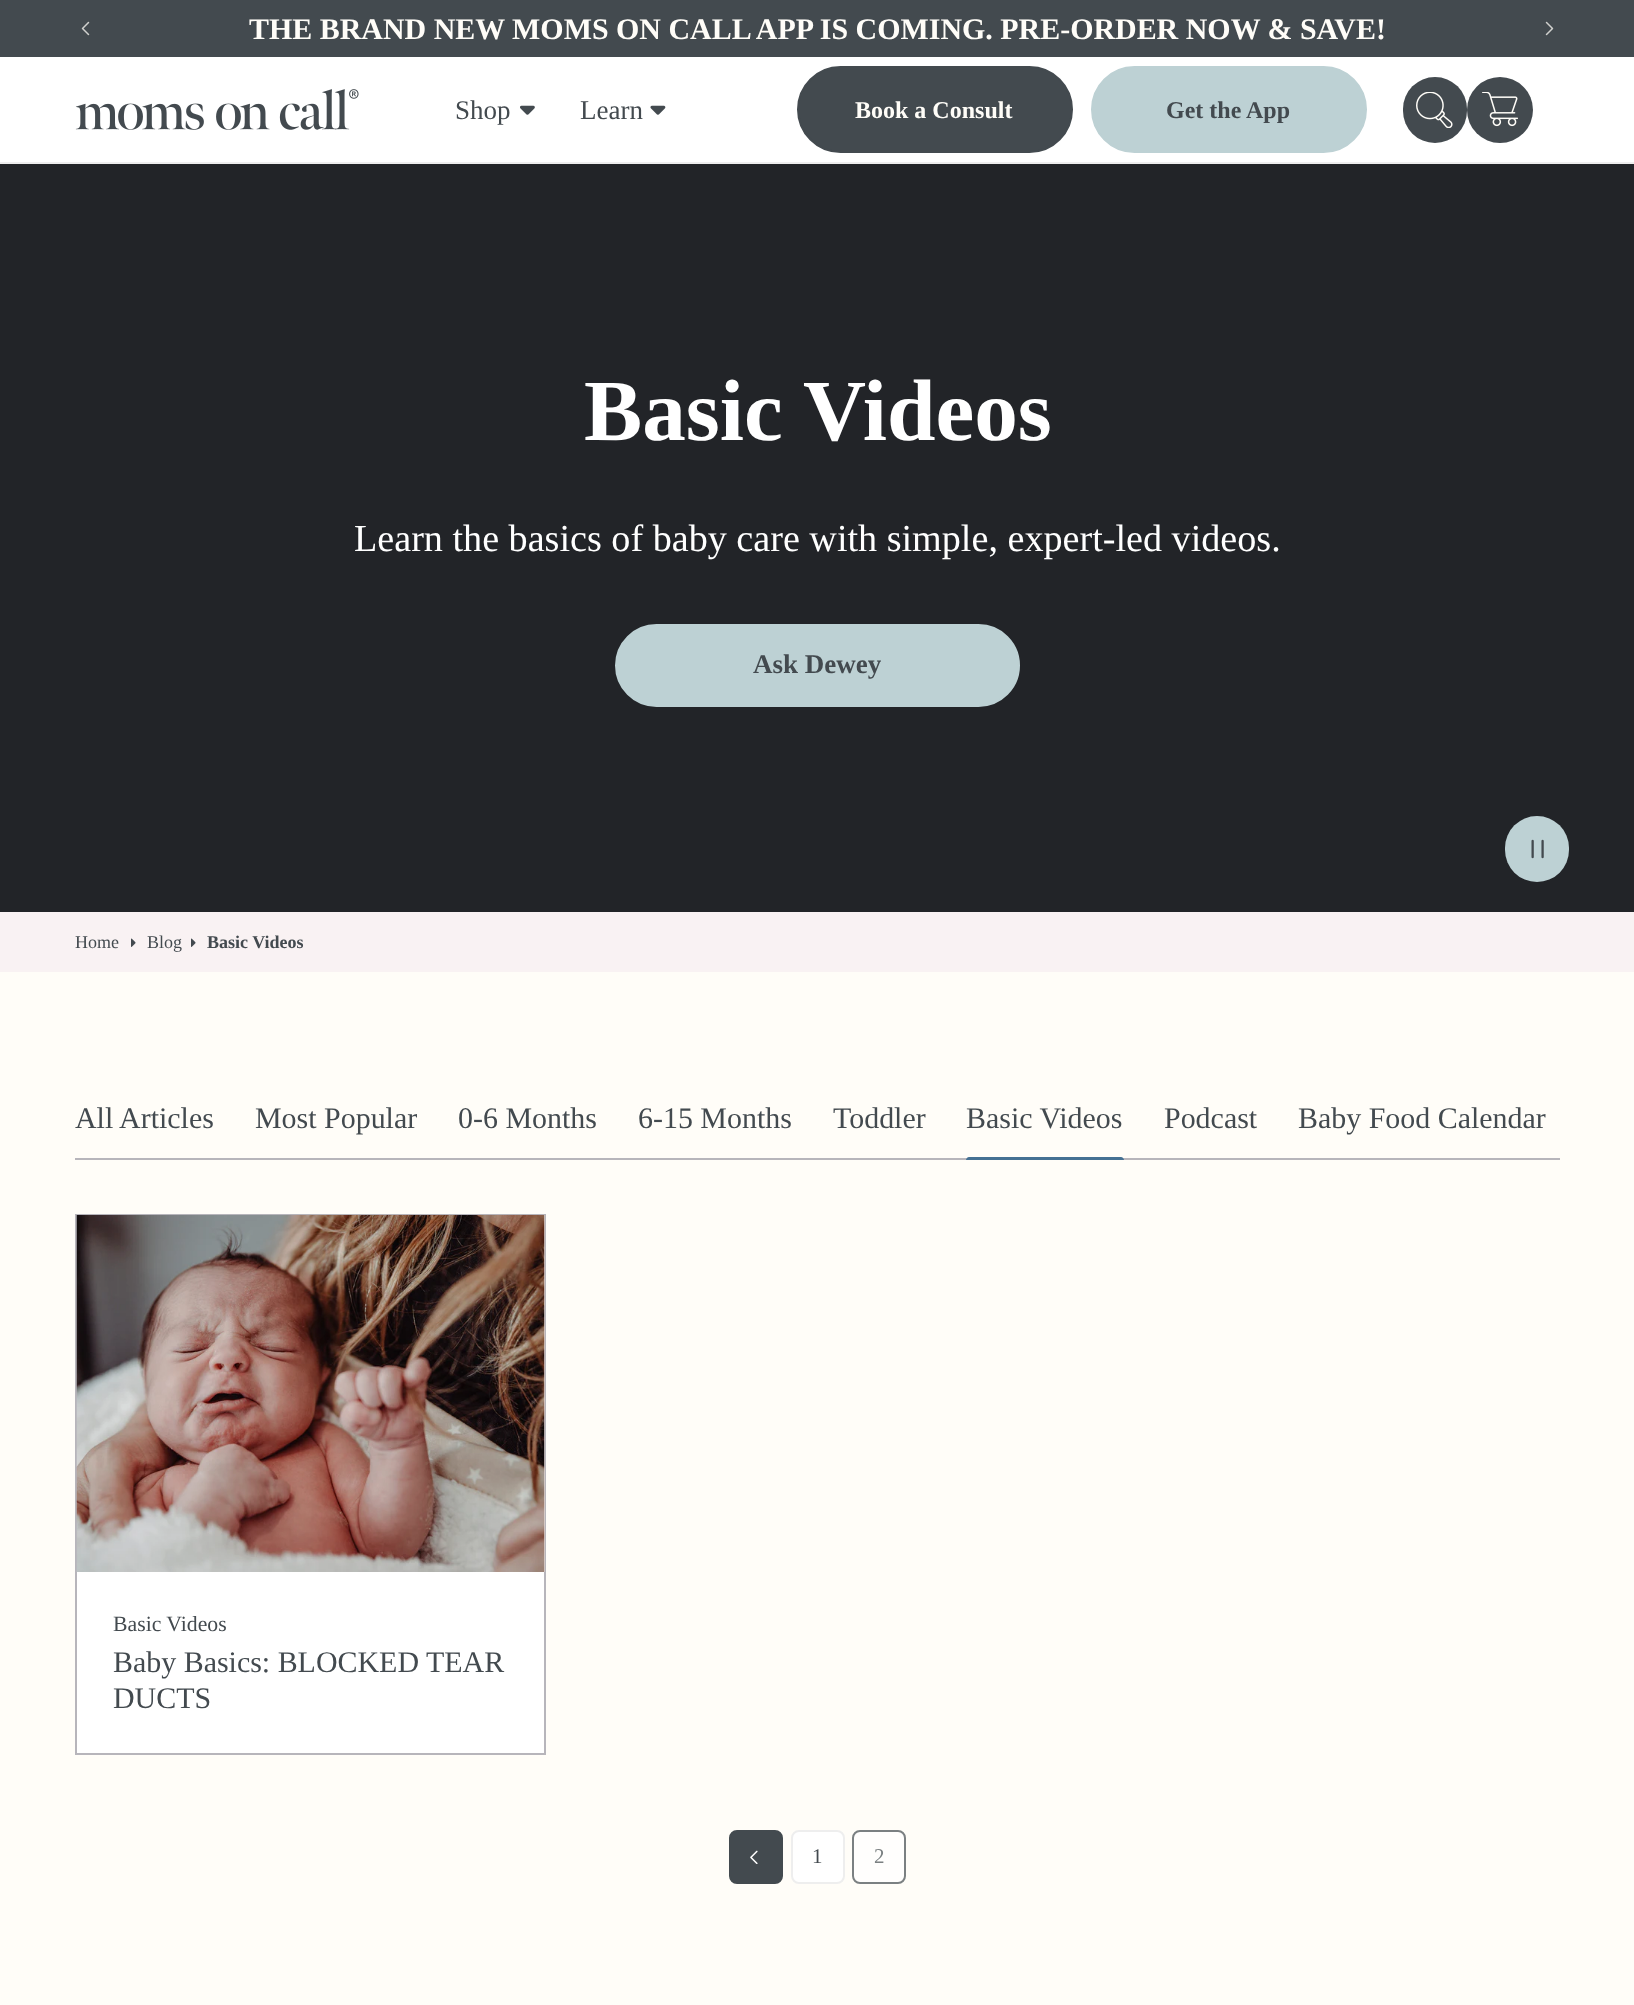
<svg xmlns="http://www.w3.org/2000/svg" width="1634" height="2005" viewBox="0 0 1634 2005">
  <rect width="100%" height="100%" fill="#fffdf8"/>
  <path d="M0 0h1634v57H0z" fill="#434a4f"/>
  <image x="81" y="21" width="9" height="15" href="img/1.png"/>
  <image x="1545" y="21" width="9" height="15" href="img/2.png"/>
  <path d="M0 57h1634v105H0z" fill="#fff"/>
  <path d="M0 162h1634v2H0z" fill="#eee"/>
  <image x="75" y="89" width="284" height="41" href="img/3.png"/>
  <image x="520" y="105" width="15" height="10" href="img/4.png"/>
  <image x="650" y="105" width="16" height="10" href="img/5.png"/>
  <rect x="798" y="67" width="274" height="85" rx="42.5" fill="#434a4f" stroke="#434a4f" stroke-width="2"/>
  <rect x="1092" y="67" width="274" height="85" rx="42.5" fill="#bdd1d4" stroke="#bdd1d4" stroke-width="2"/>
  <rect x="1403" y="77" width="64" height="66" rx="32" fill="#434a4f"/>
  <image x="1416" y="92" width="37" height="36" href="img/6.png"/>
  <circle cx="1500" cy="110" r="33" fill="#434a4f"/>
  <image x="1482" y="92" width="36" height="35" href="img/7.png"/>
  <path d="M0 164h1634v748H0z" fill="#222428"/>
  <rect x="1505" y="816" width="64" height="66" rx="32" fill="#bdd1d4"/>
  <image x="1531" y="839" width="13" height="20" href="img/8.png"/>
  <rect x="616" y="625" width="403" height="81" rx="40.5" fill="#bdd1d4" stroke="#bdd1d4" stroke-width="2"/>
  <path d="M0 912h1634v60H0z" fill="#f9f2f3"/>
  <image x="131" y="938" width="5" height="9" href="img/9.png"/>
  <image x="191" y="938" width="5" height="9" href="img/9.png"/>
  <path d="M75 1158h1485v2H75z" fill="#b7b5bb"/>
  <path d="M969 1157H1121C1122.5 1157 1124 1158.5 1124 1160H966C966 1158.5 967.5 1157 969 1157Z" fill="#457193"/>
  <path d="M77 1572h467v181H77z" fill="#fff"/>
  <path d="M76 1215h469v539H76z" fill="none" stroke="#b7b5bb" stroke-width="2"/>
  <path d="M544 1215h1v357H544z" fill="#e2d8d7"/>
  <image x="76" y="1215" width="469" height="357" href="img/10.png"/>
  <rect x="730" y="1831" width="52" height="52" rx="7" fill="#434a4f" stroke="#434a4f" stroke-width="2"/>
  <image x="750" y="1850" width="8" height="14" href="img/11.png"/>
  <rect x="792" y="1831" width="52" height="52" rx="7" fill="#fff" stroke="#eee" stroke-width="2"/>
  <rect x="853" y="1831" width="52" height="52" rx="7" fill="#fffefd" stroke="#7b8082" stroke-width="2"/>
  <text x="249" y="39" font-family="Liberation Serif" font-size="29.95" font-weight="bold" fill="#fffdf8">THE BRAND NEW MOMS ON CALL APP IS COMING. PRE-ORDER NOW &amp; SAVE!</text>
  <g font-family="Liberation Serif" font-size="27" fill="#434a4f">
    <text x="455" y="119">Shop</text>
    <text x="580" y="119">Learn</text>
  </g>
  <text x="855" y="118" font-family="Liberation Serif" font-size="24" font-weight="bold" fill="#fffdf8">Book a Consult</text>
  <text x="1166" y="118" font-family="Liberation Serif" font-size="24" font-weight="bold" fill="#434a4f">Get the App</text>
  <text x="584" y="440" font-family="Liberation Serif" font-size="87.25" font-weight="bold" fill="#fff">Basic Videos</text>
  <text x="354" y="551" font-family="Liberation Serif" font-size="38.15" fill="#fff">Learn the basics of baby care with simple, expert-led videos.</text>
  <text x="753" y="673" font-family="Liberation Serif" font-size="27" font-weight="bold" fill="#434a4f">Ask Dewey</text>
  <g font-family="Liberation Serif" font-size="18" fill="#434a4f">
    <text x="75" y="948">Home</text>
    <text x="147" y="948">Blog</text>
  </g>
  <text x="207" y="948" font-family="Liberation Serif" font-size="18" font-weight="bold" fill="#434a4f">Basic Videos</text>
  <g font-family="Liberation Serif" font-size="29.95" fill="#434a4f">
    <text x="75" y="1128">All Articles</text>
    <text x="255" y="1128">Most Popular</text>
    <text x="458" y="1128">0-6 Months</text>
    <text x="638" y="1128">6-15 Months</text>
    <text x="833" y="1128">Toddler</text>
    <text x="966" y="1128">Basic Videos</text>
    <text x="1164" y="1128">Podcast</text>
    <text x="1298" y="1128">Baby Food Calendar</text>
  </g>
  <text x="113" y="1631" font-family="Liberation Serif" font-size="21.75" fill="#434a4f">Basic Videos</text>
  <g font-family="Liberation Serif" font-size="29.95" fill="#434a4f">
    <text x="113" y="1672">Baby Basics: BLOCKED TEAR</text>
    <text x="113" y="1708">DUCTS</text>
  </g>
  <text x="812" y="1863" font-family="Liberation Serif" font-size="21" fill="#434a4f">1</text>
  <text x="874" y="1863" font-family="Liberation Serif" font-size="21" fill="#7b8082">2</text>
</svg>
